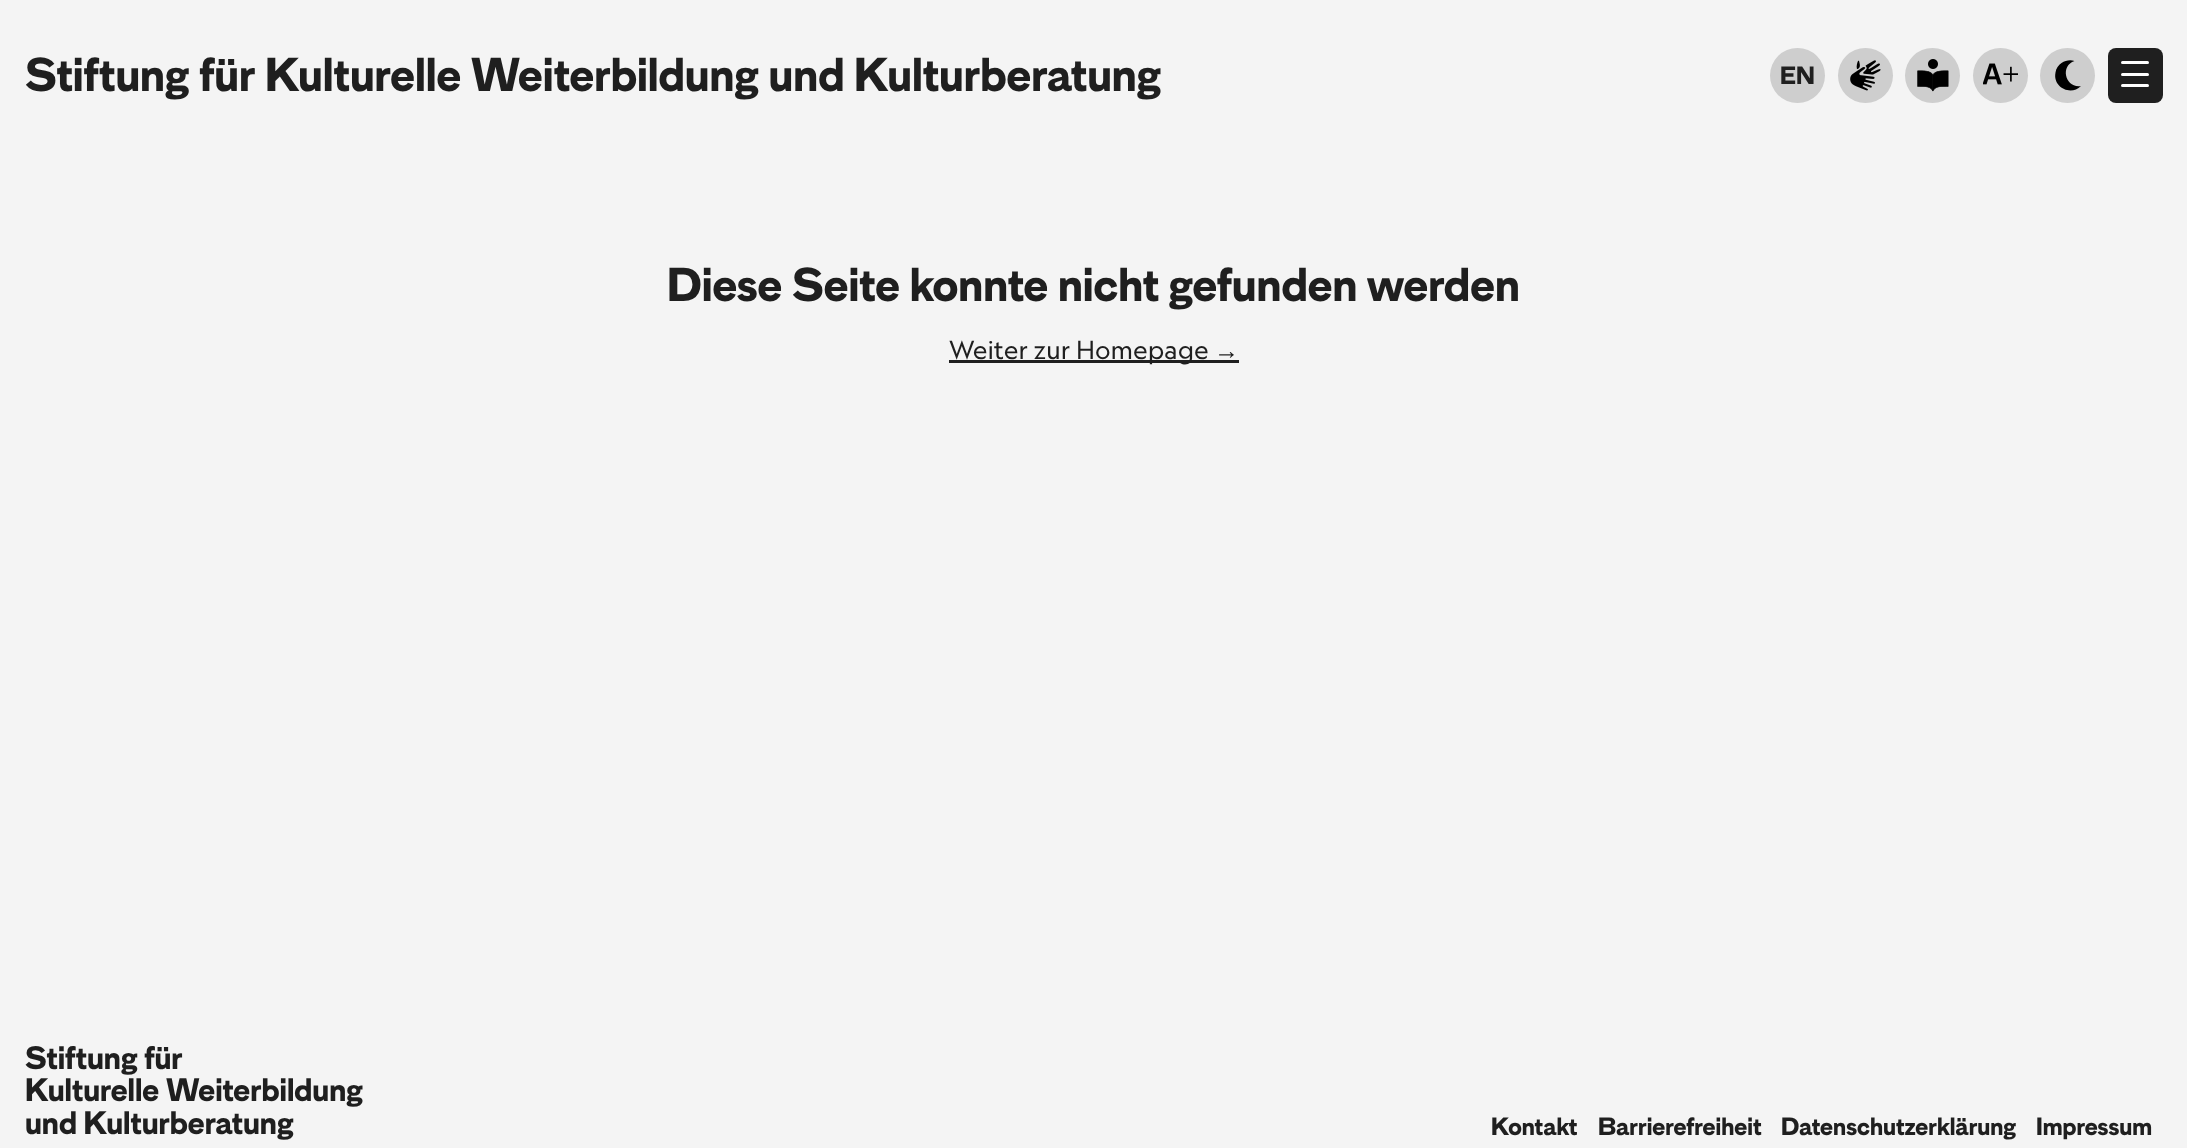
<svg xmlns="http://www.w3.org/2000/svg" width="2187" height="1148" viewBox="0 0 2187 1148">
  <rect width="100%" height="100%" fill="#f4f4f4"/>
  <circle cx="1797.5" cy="75.5" r="27.5" fill="#cecece"/>
  <circle cx="1865.5" cy="75.5" r="27.5" fill="#cecece"/>
  <image x="1850" y="60" width="31" height="31" href="img/1.png"/>
  <circle cx="1932.5" cy="75.5" r="27.5" fill="#cecece"/>
  <image x="1917" y="59" width="32" height="33" href="img/2.png"/>
  <circle cx="2000.5" cy="75.5" r="27.5" fill="#cecece"/>
  <image x="1983" y="63" width="35" height="22" href="img/3.png"/>
  <circle cx="2067.5" cy="75.5" r="27.5" fill="#cecece"/>
  <path d="M2074.5 61C2059.5 66 2065.5 88.5 2081 86C2070.5 96.5 2052.5 87 2055.5 72.5C2056 68.5 2058.5 65 2061.5 63C2065.5 60.5 2070 59.5 2074.5 61Z" fill="#000" fill-rule="evenodd"/>
  <rect x="2108" y="48" width="55" height="55" rx="8" fill="#1f1f1f"/>
  <rect x="2121" y="61" width="28" height="3" rx="1.5" fill="#fff"/>
  <rect x="2121" y="73" width="28" height="3" rx="1.5" fill="#fff"/>
  <rect x="2121" y="84" width="28" height="3" rx="1.5" fill="#fff"/>
  <path d="M949 360h290v3H949z" fill="#1f1f1f"/>
  <text x="25" y="91" font-family="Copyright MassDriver" font-size="47.5" font-weight="bold" fill="#1f1f1f">Stiftung für Kulturelle Weiterbildung und Kulturberatung</text>
  <text x="1780" y="84" font-family="Copyright MassDriver" font-size="25" font-weight="bold" fill="#1f1f1f">EN</text>
  <text x="667" y="301" font-family="Copyright MassDriver" font-size="47.5" font-weight="bold" fill="#1f1f1f">Diese Seite konnte nicht gefunden werden</text>
  <text x="949" y="359" font-family="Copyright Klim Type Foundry" font-size="25" fill="#1f1f1f">Weiter zur Homepage</text>
  <text x="1214" y="359" font-family="Liberation Sans" font-size="25" fill="#1f1f1f">→</text>
  <g font-family="Copyright MassDriver" font-size="32.5" font-weight="bold" fill="#1f1f1f">
    <text x="25" y="1069">Stiftung für</text>
    <text x="25" y="1101">Kulturelle Weiterbildung</text>
    <text x="25" y="1134">und Kulturberatung</text>
  </g>
  <g font-family="Copyright MassDriver" font-size="25" font-weight="bold" fill="#1f1f1f">
    <text x="1491" y="1135">Kontakt</text>
    <text x="1598" y="1135">Barrierefreiheit</text>
    <text x="1781" y="1135">Datenschutzerklärung</text>
    <text x="2036" y="1135">Impressum</text>
  </g>
</svg>
